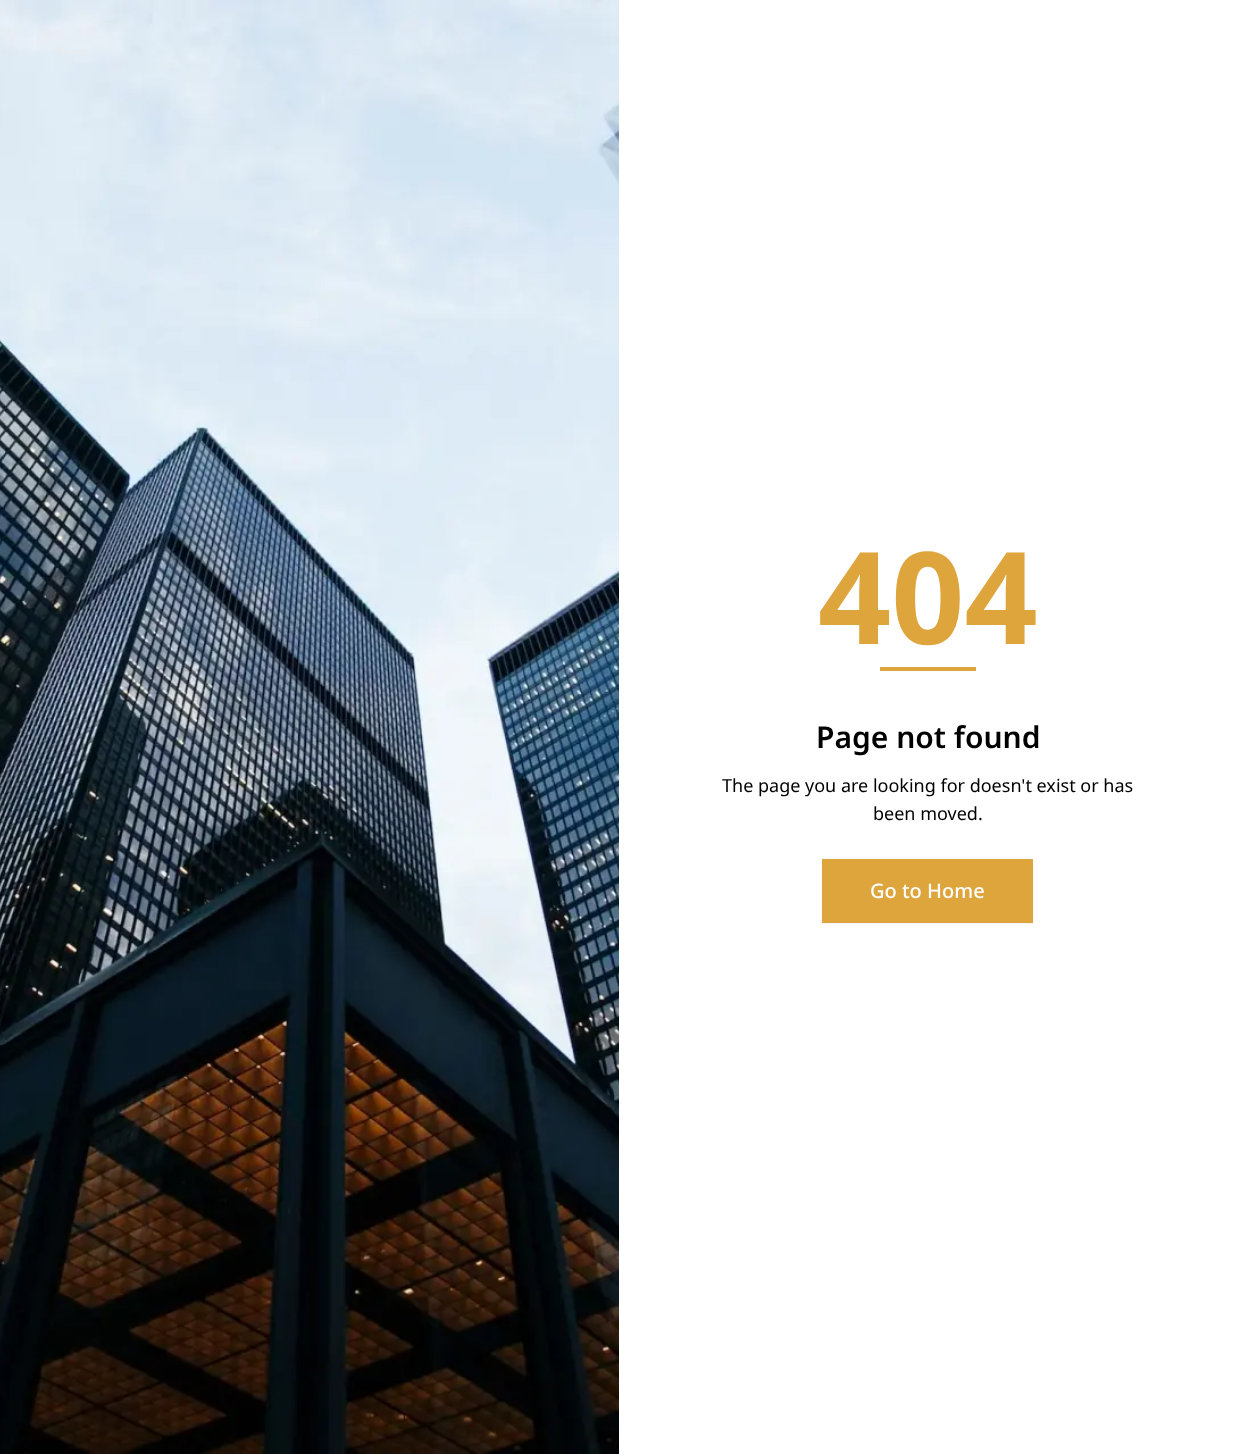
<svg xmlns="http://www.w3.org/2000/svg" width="1237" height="1454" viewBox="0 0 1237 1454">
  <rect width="100%" height="100%" fill="#fff"/>
  <image x="0" y="0" width="619" height="1454" href="img/1.png"/>
  <path d="M880 667h96v4H880z" fill="#dda53c"/>
  <path d="M822 860h211v64H822z" fill="#0000000d" filter="blur(1px)"/>
  <path d="M822 859h211v64H822z" fill="#dda53c"/>
  <text x="818" y="644" font-family="Noto Sans" font-size="128" font-weight="bold" fill="#dda53c">404</text>
  <text x="816" y="748" font-family="Noto Sans" font-size="30" font-weight="600" fill="#000">Page not found</text>
  <g font-family="Noto Sans" font-size="18" fill="#000">
    <text x="722" y="792">The page you are looking for doesn't exist or has</text>
    <text x="873" y="820">been moved.</text>
  </g>
  <text x="870" y="898" font-family="Noto Sans" font-size="20" font-weight="500" fill="#fff">Go to Home</text>
</svg>
